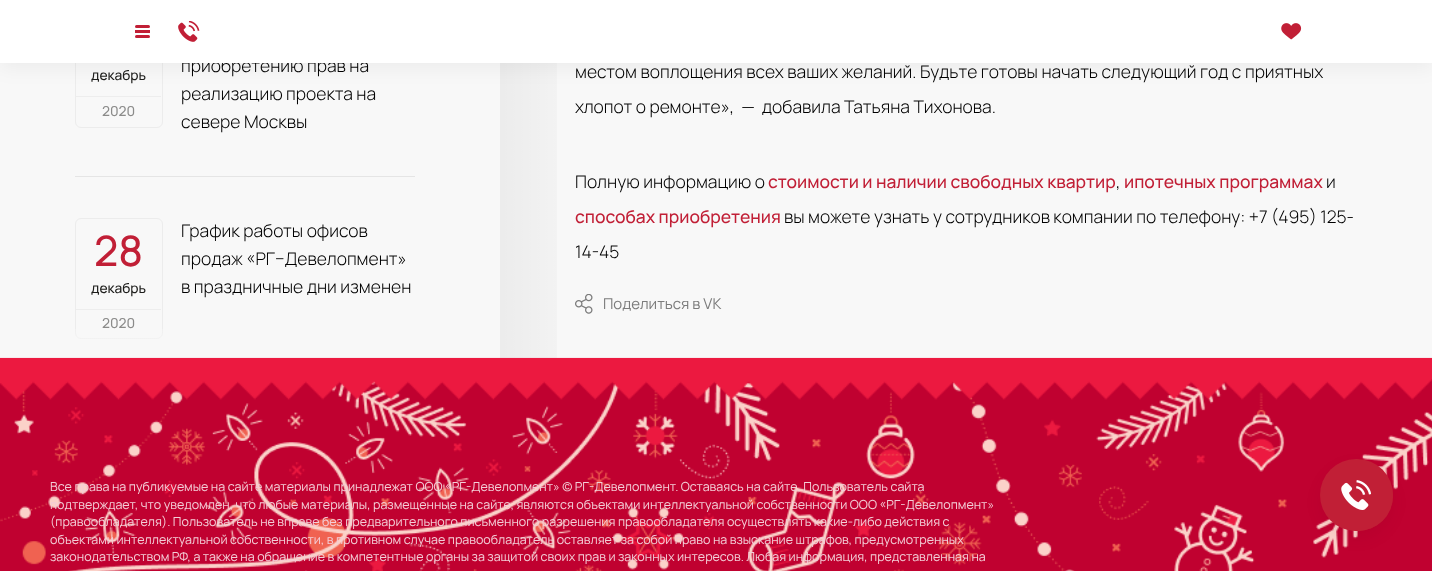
<svg xmlns="http://www.w3.org/2000/svg" width="1432" height="571" viewBox="0 0 1432 571">
  <defs>
    <linearGradient id="g1" gradientUnits="userSpaceOnUse" x1="500" y1="286" x2="600" y2="286"><stop offset="0" stop-color="#000" stop-opacity="0.05"/><stop offset="1" stop-color="#000" stop-opacity="0"/></linearGradient>
    <linearGradient id="g2" gradientUnits="userSpaceOnUse" x1="250" y1="359" x2="250" y2="329"><stop offset="0" stop-color="#f8f8f8"/><stop offset="1" stop-color="#f8f8f8" stop-opacity="0.3"/></linearGradient>
  </defs>
  <rect width="100%" height="100%" fill="#f8f8f8"/>
  <rect x="75.5" y="5.5" width="87" height="122" rx="5.5" fill="none" stroke="#ececec"/>
  <path d="M76 96h85v1H76z" fill="#ededed"/>
  <path d="M500 63h57v295H500z" fill="url(#g1)"/>
  <path d="M0 5h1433v63H0z" fill="#0000000d" filter="blur(9.5px)"/>
  <path d="M75 176h340v1H75z" fill="#e5e5e5"/>
  <rect x="75.5" y="218.5" width="87" height="120" rx="5.5" fill="none" stroke="#ececec"/>
  <path d="M76 309h85v1H76z" fill="#ededed"/>
  <path d="M75 329h88v10H75z" fill="url(#g2)"/>
  <image x="575" y="294" width="18" height="20" href="img/3.png"/>
  <image x="0" y="357" width="1432" height="214" href="img/4.png"/>
  <rect x="1320" y="466" width="73" height="73" rx="36.5" fill="#3f07070f" filter="blur(7.5px)"/>
  <circle cx="1356" cy="495" r="34.5" fill="none" stroke="#c11f36"/>
  <circle cx="1356" cy="495" r="34.5" fill="none" stroke="#c11f36"/>
  <circle cx="1356" cy="495" r="34.5" fill="none" stroke="#c11f36"/>
  <circle cx="1358" cy="496" r="35" fill="#c11f36"/>
  <rect x="1320" y="459" width="73" height="72" rx="36" fill="#c11f36"/>
  <image x="1341" y="480" width="30" height="30" href="img/5.png"/>
  <text x="91" y="80" font-family="Manrope" font-size="13.75" font-weight="500" fill="#1d1d1b">декабрь</text>
  <text x="102" y="116" font-family="Manrope" font-size="13.75" font-weight="500" fill="#8b8b8a">2020</text>
  <text x="181" y="72" font-family="Manrope" font-size="17.5" font-weight="300" fill="#000">приобретению прав на</text>
  <path d="M0 0h1432v63H0z" fill="#fff"/>
  <rect x="135" y="35" width="15" height="3" rx="1.5" fill="#c11f36"/>
  <path d="M135 30h15v3H135z" fill="#c11f36"/>
  <rect x="135" y="25" width="15" height="3" rx="1.5" fill="#c11f36"/>
  <image x="1281" y="23" width="21" height="17" href="img/2.png"/>
  <image x="178" y="21" width="22" height="21" href="img/1.png"/>
  <g font-family="Manrope" font-size="17.5" font-weight="300" fill="#000">
    <text x="181" y="100">реализацию проекта на</text>
    <text x="181" y="128">севере Москвы</text>
  </g>
  <text x="94" y="266" font-family="Manrope" font-size="42" font-weight="500" fill="#c11f36">28</text>
  <text x="91" y="293" font-family="Manrope" font-size="13.75" font-weight="500" fill="#1d1d1b">декабрь</text>
  <text x="102" y="328" font-family="Manrope" font-size="13.75" font-weight="500" fill="#8b8b8a">2020</text>
  <g font-family="Manrope" font-size="17.5" font-weight="300" fill="#000">
    <text x="181" y="237">График работы офисов</text>
    <text x="181" y="265">продаж «РГ–Девелопмент»</text>
    <text x="181" y="293">в праздничные дни изменен</text>
    <text x="575" y="78">местом воплощения всех ваших желаний. Будьте готовы начать следующий год с приятных</text>
    <text x="575" y="113" xml:space="preserve">хлопот о ремонте»,  —  добавила Татьяна Тихонова.</text>
    <text x="575" y="188">Полную информацию о</text>
  </g>
  <text x="768" y="188" font-family="Manrope" font-size="17.5" font-weight="500" fill="#c11f36">стоимости и наличии свободных квартир</text>
  <text x="1116" y="188" font-family="Manrope" font-size="17.5" font-weight="300" fill="#000">,</text>
  <text x="1124" y="188" font-family="Manrope" font-size="17.5" font-weight="500" fill="#c11f36">ипотечных программах</text>
  <text x="1326" y="188" font-family="Manrope" font-size="17.5" font-weight="300" fill="#000">и</text>
  <text x="575" y="223" font-family="Manrope" font-size="17.5" font-weight="500" fill="#c11f36">способах приобретения</text>
  <g font-family="Manrope" font-size="17.5" font-weight="300" fill="#000">
    <text x="784" y="223">вы можете узнать у сотрудников компании по телефону: +7 (495) 125-</text>
    <text x="575" y="258">14-45</text>
  </g>
  <text x="603" y="309" font-family="Manrope" font-size="15" fill="#7c7c7c">Поделиться в VK</text>
  <g font-family="Manrope" font-size="12.5" fill="#f3ced7">
    <text x="50" y="491">Все права на публикуемые на сайте материалы принадлежат ООО «РГ-Девелопмент» © РГ-Девелопмент. Оставаясь на сайте, Пользователь сайта</text>
    <text x="50" y="509">подтверждает, что уведомлен, что любые материалы, размещенные на сайте, являются объектами интеллектуальной собственности ООО «РГ-Девелопмент»</text>
    <text x="50" y="526">(правообладателя). Пользователь не вправе без предварительного письменного разрешения правообладателя осуществлять какие-либо действия с</text>
    <text x="50" y="544">объектами интеллектуальной собственности, в противном случае правообладатель оставляет за собой право на взыскание штрафов, предусмотренных</text>
    <text x="50" y="561">законодательством РФ, а также на обращение в компетентные органы за защитой своих прав и законных интересов. Любая информация, представленная на</text>
  </g>
</svg>
